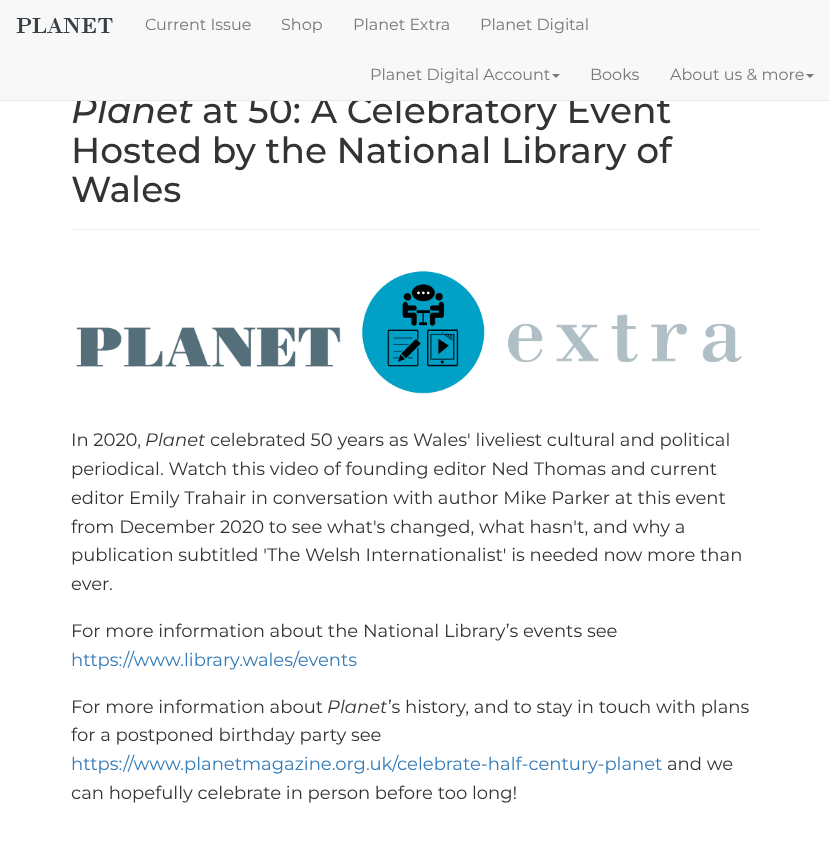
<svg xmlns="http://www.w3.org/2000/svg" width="829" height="849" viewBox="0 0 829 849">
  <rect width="100%" height="100%" fill="#fff"/>
  <path d="M71 229h688v1H71z" fill="#eee"/>
  <image x="76" y="271" width="666" height="123" href="img/2.png"/>
  <text x="71" y="123" font-family="Montserrat" font-size="36" font-weight="500" font-style="italic" fill="#333">Planet</text>
  <text x="202" y="123" font-family="Montserrat" font-size="36" font-weight="500" fill="#333">at 50: A Celebratory Event</text>
  <path d="M0 0h829v100H0z" fill="#f8f8f8"/>
  <path d="M806 74H814L810 78Z" fill="#777"/>
  <g font-family="Montserrat" font-size="16" fill="#777">
    <text x="670" y="80">About us &amp; more</text>
    <text x="590" y="80">Books</text>
  </g>
  <path d="M552 74H560L556 78Z" fill="#777"/>
  <g font-family="Montserrat" font-size="16" fill="#777">
    <text x="370" y="80">Planet Digital Account</text>
    <text x="480" y="30">Planet Digital</text>
    <text x="353" y="30">Planet Extra</text>
    <text x="281" y="30">Shop</text>
    <text x="145" y="30">Current Issue</text>
  </g>
  <image x="16" y="18" width="97" height="15" href="img/1.png"/>
  <path d="M0 100h829v1H0z" fill="#e7e7e7"/>
  <g font-family="Montserrat" font-size="36" font-weight="500" fill="#333">
    <text x="71" y="163">Hosted by the National Library of</text>
    <text x="71" y="202">Wales</text>
  </g>
  <text x="71" y="446" font-family="Montserrat" font-size="18" fill="#333">In 2020,</text>
  <text x="145" y="446" font-family="Montserrat" font-size="18" font-style="italic" fill="#333">Planet</text>
  <g font-family="Montserrat" font-size="18" fill="#333">
    <text x="210" y="446">celebrated 50 years as Wales' liveliest cultural and political</text>
    <text x="71" y="475">periodical. Watch this video of founding editor Ned Thomas and current</text>
    <text x="71" y="504">editor Emily Trahair in conversation with author Mike Parker at this event</text>
    <text x="71" y="533">from December 2020 to see what's changed, what hasn't, and why a</text>
    <text x="71" y="561">publication subtitled 'The Welsh Internationalist' is needed now more than</text>
    <text x="71" y="590">ever.</text>
    <text x="71" y="637">For more information about the National Library’s events see</text>
  </g>
  <text x="71" y="666" font-family="Montserrat" font-size="18" fill="#337ab7">https://www.library.wales/events</text>
  <text x="71" y="713" font-family="Montserrat" font-size="18" fill="#333">For more information about</text>
  <text x="327" y="713" font-family="Montserrat" font-size="18" font-style="italic" fill="#333">Planet</text>
  <g font-family="Montserrat" font-size="18" fill="#333">
    <text x="388" y="713">’s history, and to stay in touch with plans</text>
    <text x="71" y="741">for a postponed birthday party see</text>
  </g>
  <text x="71" y="770" font-family="Montserrat" font-size="18" fill="#337ab7">https://www.planetmagazine.org.uk/celebrate-half-century-planet</text>
  <g font-family="Montserrat" font-size="18" fill="#333">
    <text x="667" y="770">and we</text>
    <text x="71" y="799">can hopefully celebrate in person before too long!</text>
  </g>
</svg>
